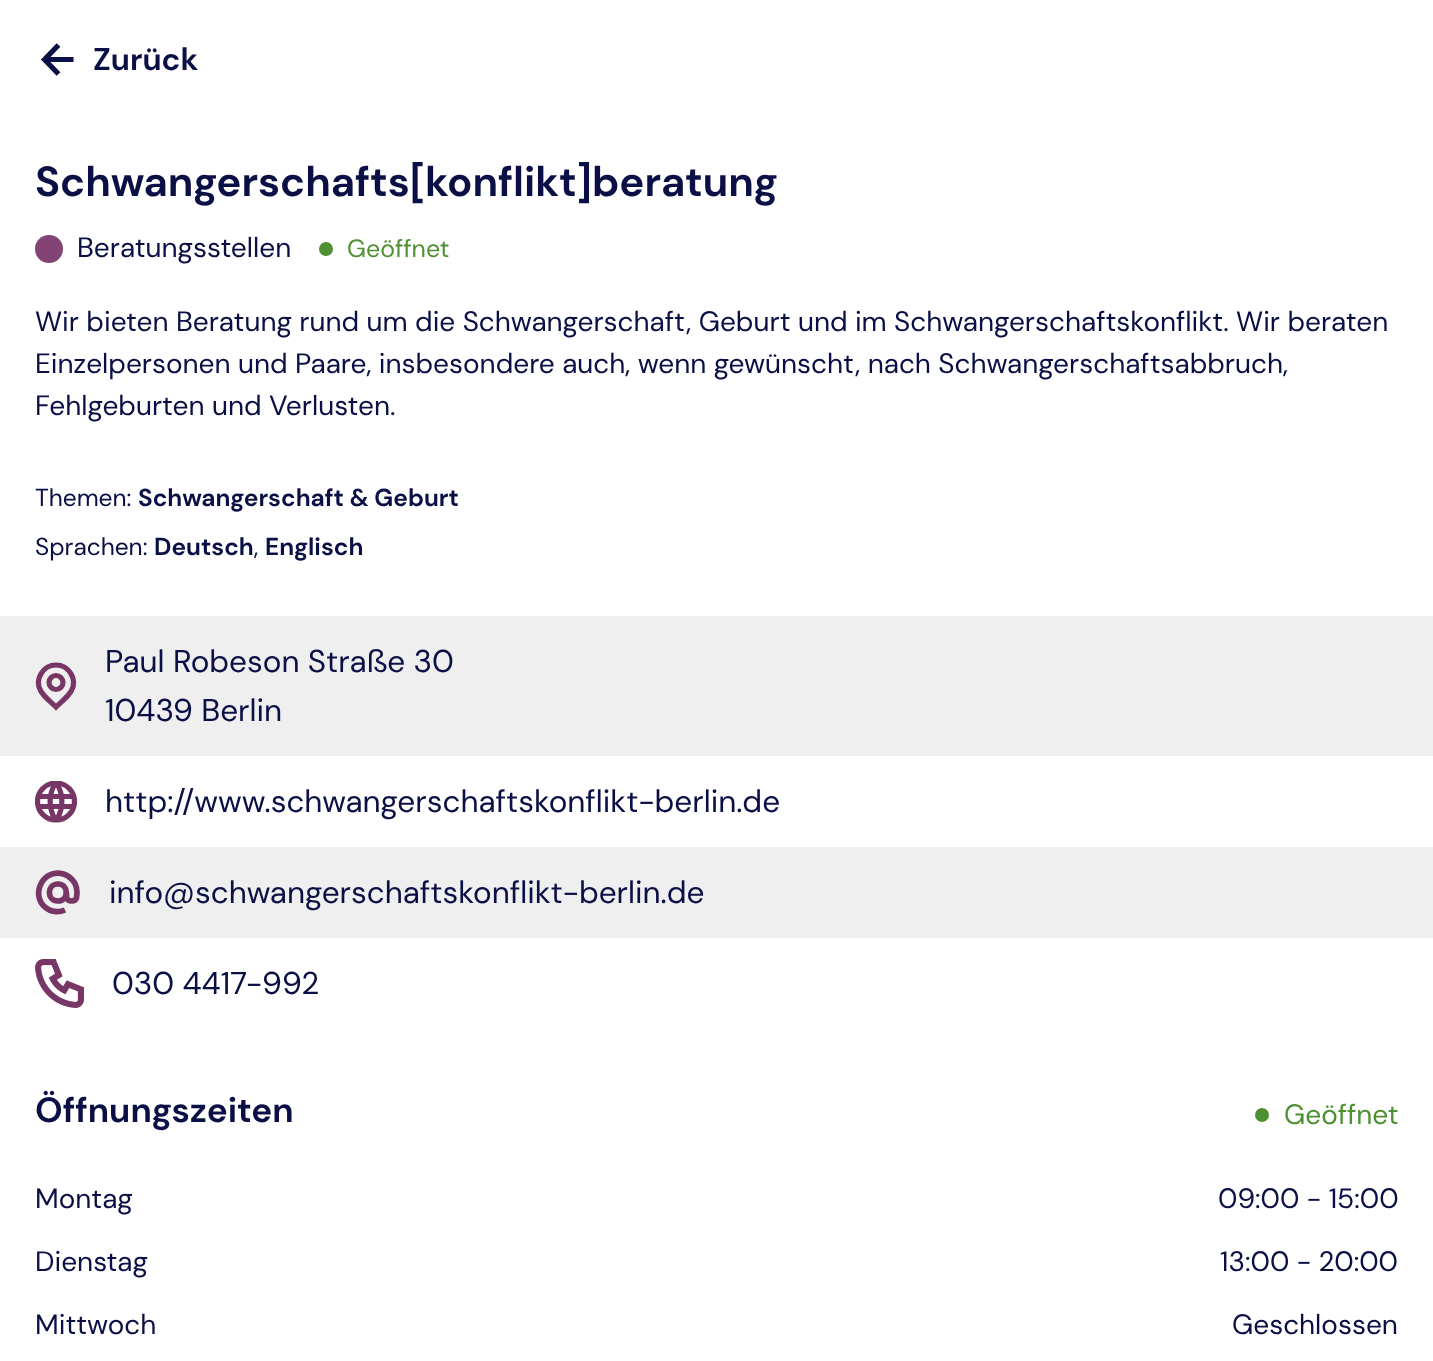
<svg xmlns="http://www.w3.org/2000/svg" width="1433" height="1361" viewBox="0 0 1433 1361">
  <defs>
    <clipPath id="clip1"><path d="M35 781h42v42H35z"/></clipPath>
  </defs>
  <rect width="100%" height="100%" fill="#fff"/>
  <path d="M73.5 59.5H45M58.5 45L44.5 59.5L58.5 74" fill="none" stroke="#0a1045" stroke-width="5.2"/>
  <circle cx="49" cy="249" r="14" fill="#834375"/>
  <circle cx="326" cy="249" r="7" fill="#4f9033"/>
  <path d="M0 616h1433v140H0z" fill="#efefef"/>
  <circle cx="56" cy="682.5" r="7" fill="none" stroke="#773666" stroke-width="5.2"/>
  <path d="M56 707C51.5 702.5 43.5 696.5 40.5 690.5C34.5 679.5 43 665 56 665C69 665 77.5 679.5 71.5 690.5C68.5 696.5 60.5 702.5 56 707Z" fill="none" stroke="#773666" stroke-width="5.2" stroke-linecap="round"/>
  <g clip-path="url(#clip1)">
    <circle cx="56" cy="801.5" r="18.5" fill="none" stroke="#773666" stroke-width="5.2"/>
  </g>
  <path d="M39.5 796.5H72.5M39.5 806.5H72.5M55 784C48.5 794.5 48.5 808.5 55 819M57 784C63.5 794.5 63.5 808.5 57 819" fill="none" stroke="#773666" stroke-width="5.2" stroke-linecap="round" stroke-linejoin="round"/>
  <path d="M0 847h1433v91H0z" fill="#efefef"/>
  <path d="M58 901C69 901 69 884 58 884C46.5 884 46.5 901 58 901Z" fill="none" stroke="#773666" stroke-width="5.7" stroke-linecap="round" stroke-linejoin="round"/>
  <path d="M66.5 892.5V898C68.5 902 75 902 76.5 898L77 892.5C77 889.5 76.5 886.5 75 883.5C72.5 879 68 875.5 63.5 874C40.5 867 28 901 50.5 910.5C55 912 60.5 912 65 910" fill="none" stroke="#773666" stroke-width="5.7" stroke-linejoin="round"/>
  <image x="35" y="959" width="49" height="49" href="img/1.png"/>
  <circle cx="1262" cy="1115" r="7" fill="#4f9033"/>
  <text x="93" y="70" font-family="DM Sans" font-size="31.5" font-weight="bold" fill="#0a1045">Zurück</text>
  <text x="35" y="196" font-family="DM Sans" font-size="42" font-weight="bold" fill="#0a1045">Schwangerschafts[konflikt]beratung</text>
  <text x="77" y="257" font-family="DM Sans" font-size="28" fill="#0a1045">Beratungsstellen</text>
  <text x="347" y="257" font-family="DM Sans" font-size="25" fill="#4f9033">Geöffnet</text>
  <g font-family="DM Sans" font-size="28" fill="#0a1045">
    <text x="35" y="331">Wir bieten Beratung rund um die Schwangerschaft, Geburt und im Schwangerschaftskonflikt. Wir beraten</text>
    <text x="35" y="373">Einzelpersonen und Paare, insbesondere auch, wenn gewünscht, nach Schwangerschaftsabbruch,</text>
    <text x="35" y="415">Fehlgeburten und Verlusten.</text>
  </g>
  <text x="35" y="506" font-family="DM Sans" font-size="24.5" fill="#0a1045">Themen:</text>
  <text x="138" y="506" font-family="DM Sans" font-size="24.5" font-weight="bold" fill="#0a1045">Schwangerschaft &amp; Geburt</text>
  <text x="35" y="555" font-family="DM Sans" font-size="24.5" fill="#0a1045">Sprachen:</text>
  <text x="154" y="555" font-family="DM Sans" font-size="24.5" font-weight="bold" fill="#0a1045">Deutsch</text>
  <text x="254" y="555" font-family="DM Sans" font-size="24.5" fill="#0a1045">,</text>
  <text x="265" y="555" font-family="DM Sans" font-size="24.5" font-weight="bold" fill="#0a1045">Englisch</text>
  <g font-family="DM Sans" font-size="31.5" fill="#0a1045">
    <text x="105" y="672">Paul Robeson Straße 30</text>
    <text x="105" y="721">10439 Berlin</text>
    <text x="105" y="812">http://www.schwangerschaftskonflikt-berlin.de</text>
    <text x="109" y="903">info@schwangerschaftskonflikt-berlin.de</text>
    <text x="112" y="994">030 4417-992</text>
  </g>
  <text x="35" y="1122" font-family="DM Sans" font-size="35" font-weight="bold" fill="#0a1045">Öffnungszeiten</text>
  <text x="1284" y="1124" font-family="DM Sans" font-size="28" fill="#4f9033">Geöffnet</text>
  <g font-family="DM Sans" font-size="28" fill="#0a1045">
    <text x="35" y="1208">Montag</text>
    <text x="1218" y="1208">09:00 - 15:00</text>
    <text x="35" y="1271">Dienstag</text>
    <text x="1220" y="1271">13:00 - 20:00</text>
    <text x="35" y="1334">Mittwoch</text>
    <text x="1232" y="1334">Geschlossen</text>
  </g>
</svg>
